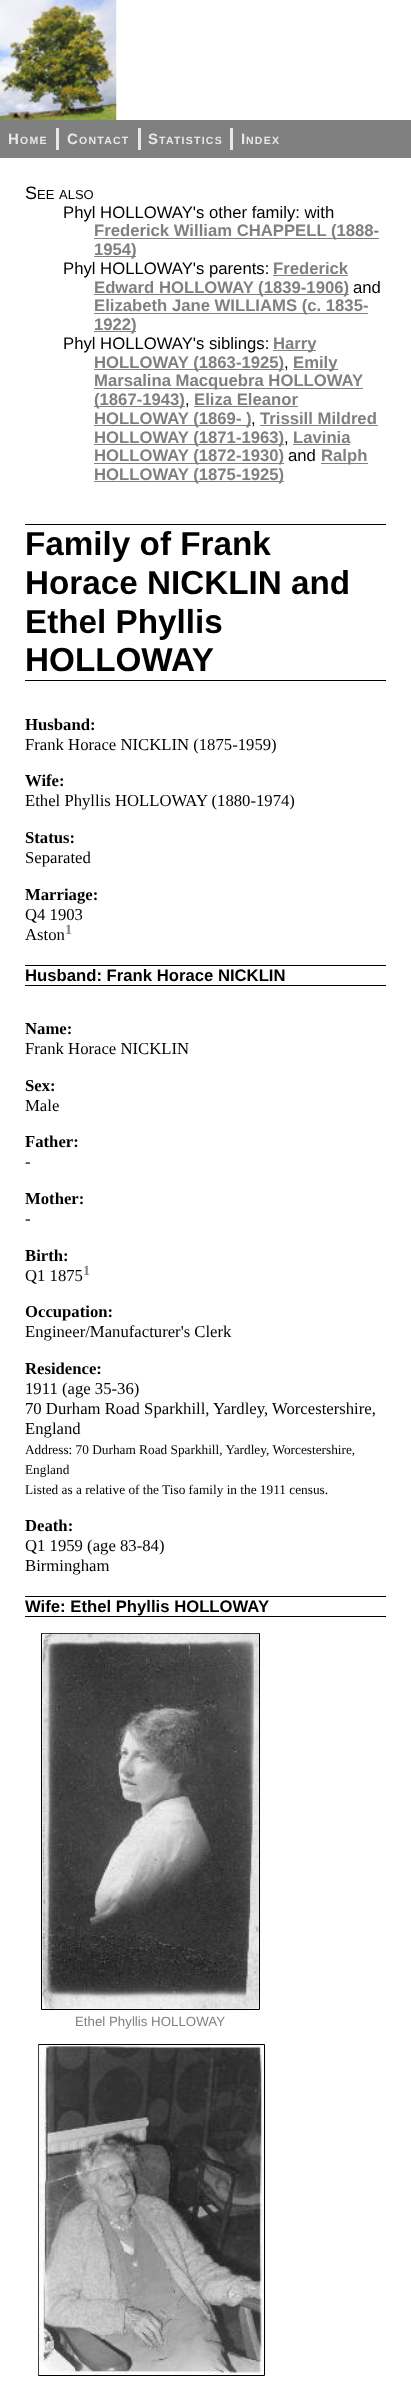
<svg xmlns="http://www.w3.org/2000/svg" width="411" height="2381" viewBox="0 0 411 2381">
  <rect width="100%" height="100%" fill="#fff"/>
  <image x="0" y="0" width="117" height="120" href="img/1.png"/>
  <path d="M0 120h411v38H0z" fill="#808080"/>
  <path d="M56 128h3v22H56z" fill="#ece7e3"/>
  <path d="M138 128h3v22H138z" fill="#ece7e3"/>
  <path d="M230 128h3v22H230z" fill="#ece7e3"/>
  <path d="M94 238h285v1H94z" fill="#808080"/>
  <path d="M94 256h42v1H94z" fill="#808080"/>
  <path d="M273 275h75v1H273z" fill="#808080"/>
  <path d="M94 294h255v1H94z" fill="#808080"/>
  <path d="M94 313h274v1H94z" fill="#808080"/>
  <path d="M94 331h42v1H94z" fill="#808080"/>
  <path d="M273 350h43v1H273z" fill="#808080"/>
  <path d="M94 369h190v1H94z" fill="#808080"/>
  <path d="M293 369h45v1H293z" fill="#808080"/>
  <path d="M94 388h269v1H94z" fill="#808080"/>
  <path d="M94 406h91v1H94z" fill="#808080"/>
  <path d="M194 406h104v1H194z" fill="#808080"/>
  <path d="M94 425h157v1H94z" fill="#808080"/>
  <path d="M260 425h118v1H260z" fill="#808080"/>
  <path d="M94 444h190v1H94z" fill="#808080"/>
  <path d="M293 444h57v1H293z" fill="#808080"/>
  <path d="M94 463h190v1H94z" fill="#808080"/>
  <path d="M321 463h47v1H321z" fill="#808080"/>
  <path d="M94 481h190v1H94z" fill="#808080"/>
  <path d="M25 524h361v1H25z" fill="#000"/>
  <path d="M25 680h361v1H25z" fill="#000"/>
  <path d="M25 965h361v1H25z" fill="#000"/>
  <path d="M25 985h361v1H25z" fill="#000"/>
  <path d="M25 1596h361v1H25z" fill="#000"/>
  <path d="M25 1616h361v1H25z" fill="#000"/>
  <path d="M41.5 1633.5h218v376H41.5z" fill="none" stroke="#000"/>
  <image x="42" y="1633" width="217" height="376" href="img/2.png"/>
  <path d="M38.5 2044.5h226v331H38.5z" fill="none" stroke="#000"/>
  <image x="38" y="2045" width="226" height="330" href="img/3.png"/>
  <text x="8" y="144" font-family="Liberation Sans" font-size="15" font-weight="bold" letter-spacing="1.25" fill="#ece7e3">H</text>
  <text x="20" y="144" font-family="Liberation Sans" font-size="10.5" font-weight="bold" letter-spacing="1.25" fill="#ece7e3">OME</text>
  <text x="67" y="144" font-family="Liberation Sans" font-size="15" font-weight="bold" letter-spacing="1.25" fill="#ece7e3">C</text>
  <text x="79" y="144" font-family="Liberation Sans" font-size="10.5" font-weight="bold" letter-spacing="1.25" fill="#ece7e3">ONTACT</text>
  <text x="148" y="144" font-family="Liberation Sans" font-size="15" font-weight="bold" letter-spacing="1.25" fill="#ece7e3">S</text>
  <text x="159" y="144" font-family="Liberation Sans" font-size="10.5" font-weight="bold" letter-spacing="1.25" fill="#ece7e3">TATISTICS</text>
  <text x="241" y="144" font-family="Liberation Sans" font-size="15" font-weight="bold" letter-spacing="1.25" fill="#ece7e3">I</text>
  <text x="246" y="144" font-family="Liberation Sans" font-size="10.5" font-weight="bold" letter-spacing="1.25" fill="#ece7e3">NDEX</text>
  <text x="25" y="199" font-family="Liberation Sans" font-size="18" fill="#000">S</text>
  <g font-family="Liberation Sans" font-size="13" fill="#000">
    <text x="37" y="199">EE</text>
    <text x="59" y="199">ALSO</text>
  </g>
  <text x="63" y="218" font-family="Liberation Sans" font-size="16.7" fill="#000">Phyl HOLLOWAY's other family: with</text>
  <g font-family="Liberation Sans" font-size="16.7" font-weight="bold" fill="#808080">
    <text x="94" y="236">Frederick William CHAPPELL (1888-</text>
    <text x="94" y="255">1954)</text>
  </g>
  <text x="63" y="274" font-family="Liberation Sans" font-size="16.7" fill="#000">Phyl HOLLOWAY's parents:</text>
  <g font-family="Liberation Sans" font-size="16.7" font-weight="bold" fill="#808080">
    <text x="273" y="274">Frederick</text>
    <text x="94" y="293">Edward HOLLOWAY (1839-1906)</text>
  </g>
  <text x="353" y="293" font-family="Liberation Sans" font-size="16.7" fill="#000">and</text>
  <g font-family="Liberation Sans" font-size="16.7" font-weight="bold" fill="#808080">
    <text x="94" y="311">Elizabeth Jane WILLIAMS (c. 1835-</text>
    <text x="94" y="330">1922)</text>
  </g>
  <text x="63" y="349" font-family="Liberation Sans" font-size="16.7" fill="#000">Phyl HOLLOWAY's siblings:</text>
  <g font-family="Liberation Sans" font-size="16.7" font-weight="bold" fill="#808080">
    <text x="273" y="349">Harry</text>
    <text x="94" y="368">HOLLOWAY (1863-1925)</text>
  </g>
  <text x="284" y="368" font-family="Liberation Sans" font-size="16.7" fill="#000">,</text>
  <g font-family="Liberation Sans" font-size="16.7" font-weight="bold" fill="#808080">
    <text x="293" y="368">Emily</text>
    <text x="94" y="386">Marsalina Macquebra HOLLOWAY</text>
    <text x="94" y="405">(1867-1943)</text>
  </g>
  <text x="185" y="405" font-family="Liberation Sans" font-size="16.7" fill="#000">,</text>
  <g font-family="Liberation Sans" font-size="16.7" font-weight="bold" fill="#808080">
    <text x="194" y="405">Eliza Eleanor</text>
    <text x="94" y="424">HOLLOWAY (1869- )</text>
  </g>
  <text x="251" y="424" font-family="Liberation Sans" font-size="16.7" fill="#000">,</text>
  <g font-family="Liberation Sans" font-size="16.7" font-weight="bold" fill="#808080">
    <text x="260" y="424">Trissill Mildred</text>
    <text x="94" y="443">HOLLOWAY (1871-1963)</text>
  </g>
  <text x="284" y="443" font-family="Liberation Sans" font-size="16.7" fill="#000">,</text>
  <g font-family="Liberation Sans" font-size="16.7" font-weight="bold" fill="#808080">
    <text x="293" y="443">Lavinia</text>
    <text x="94" y="461">HOLLOWAY (1872-1930)</text>
  </g>
  <text x="288" y="461" font-family="Liberation Sans" font-size="16.7" fill="#000">and</text>
  <g font-family="Liberation Sans" font-size="16.7" font-weight="bold" fill="#808080">
    <text x="321" y="461">Ralph</text>
    <text x="94" y="480">HOLLOWAY (1875-1925)</text>
  </g>
  <g font-family="Liberation Sans" font-size="33.25" font-weight="bold" fill="#000">
    <text x="25" y="555">Family of Frank</text>
    <text x="25" y="594">Horace NICKLIN and</text>
    <text x="25" y="633">Ethel Phyllis</text>
    <text x="25" y="671">HOLLOWAY</text>
  </g>
  <text x="25" y="730" font-family="Liberation Serif" font-size="16.7" font-weight="bold" fill="#000">Husband:</text>
  <text x="25" y="750" font-family="Liberation Serif" font-size="16.7" fill="#000">Frank Horace NICKLIN (1875-1959)</text>
  <text x="25" y="786" font-family="Liberation Serif" font-size="16.7" font-weight="bold" fill="#000">Wife:</text>
  <text x="25" y="806" font-family="Liberation Serif" font-size="16.7" fill="#000">Ethel Phyllis HOLLOWAY (1880-1974)</text>
  <text x="25" y="843" font-family="Liberation Serif" font-size="16.7" font-weight="bold" fill="#000">Status:</text>
  <text x="25" y="863" font-family="Liberation Serif" font-size="16.7" fill="#000">Separated</text>
  <text x="25" y="900" font-family="Liberation Serif" font-size="16.7" font-weight="bold" fill="#000">Marriage:</text>
  <g font-family="Liberation Serif" font-size="16.7" fill="#000">
    <text x="25" y="920">Q4 1903</text>
    <text x="25" y="940">Aston</text>
  </g>
  <text x="65" y="934" font-family="Liberation Serif" font-size="14" font-weight="bold" fill="#808080">1</text>
  <text x="25" y="981" font-family="Liberation Sans" font-size="16.7" font-weight="bold" fill="#000">Husband: Frank Horace NICKLIN</text>
  <text x="25" y="1034" font-family="Liberation Serif" font-size="16.7" font-weight="bold" fill="#000">Name:</text>
  <text x="25" y="1054" font-family="Liberation Serif" font-size="16.7" fill="#000">Frank Horace NICKLIN</text>
  <text x="25" y="1091" font-family="Liberation Serif" font-size="16.7" font-weight="bold" fill="#000">Sex:</text>
  <text x="25" y="1111" font-family="Liberation Serif" font-size="16.7" fill="#000">Male</text>
  <text x="25" y="1147" font-family="Liberation Serif" font-size="16.7" font-weight="bold" fill="#000">Father:</text>
  <text x="25" y="1167" font-family="Liberation Serif" font-size="16.7" fill="#000">-</text>
  <text x="25" y="1204" font-family="Liberation Serif" font-size="16.7" font-weight="bold" fill="#000">Mother:</text>
  <text x="25" y="1224" font-family="Liberation Serif" font-size="16.7" fill="#000">-</text>
  <text x="25" y="1261" font-family="Liberation Serif" font-size="16.7" font-weight="bold" fill="#000">Birth:</text>
  <text x="25" y="1281" font-family="Liberation Serif" font-size="16.7" fill="#000">Q1 1875</text>
  <text x="83" y="1275" font-family="Liberation Serif" font-size="14" font-weight="bold" fill="#808080">1</text>
  <text x="25" y="1317" font-family="Liberation Serif" font-size="16.7" font-weight="bold" fill="#000">Occupation:</text>
  <text x="25" y="1337" font-family="Liberation Serif" font-size="16.7" fill="#000">Engineer/Manufacturer's Clerk</text>
  <text x="25" y="1374" font-family="Liberation Serif" font-size="16.7" font-weight="bold" fill="#000">Residence:</text>
  <g font-family="Liberation Serif" font-size="16.7" fill="#000">
    <text x="25" y="1394">1911 (age 35-36)</text>
    <text x="25" y="1414">70 Durham Road Sparkhill, Yardley, Worcestershire,</text>
    <text x="25" y="1434">England</text>
  </g>
  <g font-family="Liberation Serif" font-size="13.3" fill="#000">
    <text x="25" y="1454">Address: 70 Durham Road Sparkhill, Yardley, Worcestershire,</text>
    <text x="25" y="1474">England</text>
    <text x="25" y="1494">Listed as a relative of the Tiso family in the 1911 census.</text>
  </g>
  <text x="25" y="1531" font-family="Liberation Serif" font-size="16.7" font-weight="bold" fill="#000">Death:</text>
  <g font-family="Liberation Serif" font-size="16.7" fill="#000">
    <text x="25" y="1551">Q1 1959 (age 83-84)</text>
    <text x="25" y="1571">Birmingham</text>
  </g>
  <text x="25" y="1612" font-family="Liberation Sans" font-size="16.7" font-weight="bold" fill="#000">Wife: Ethel Phyllis HOLLOWAY</text>
  <text x="75" y="2026" font-family="Liberation Sans" font-size="13.3" fill="#808080">Ethel Phyllis HOLLOWAY</text>
</svg>
